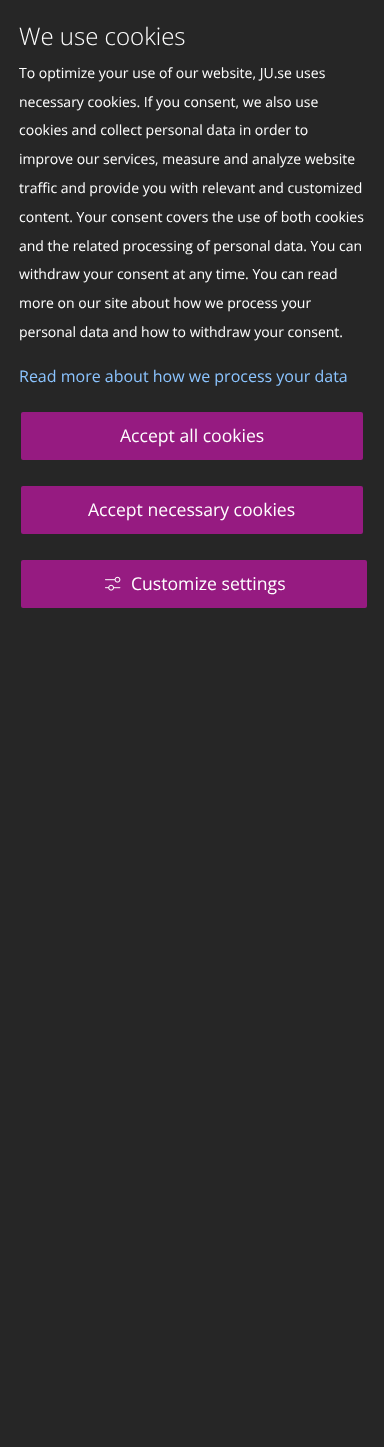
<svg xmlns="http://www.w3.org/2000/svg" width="384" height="1447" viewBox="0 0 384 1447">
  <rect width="100%" height="100%" fill="#262626"/>
  <rect x="21" y="412" width="342" height="48" rx="2" fill="#961b81"/>
  <rect x="21" y="486" width="342" height="48" rx="2" fill="#961b81"/>
  <rect x="21" y="560" width="346" height="48" rx="2" fill="#961b81"/>
  <image x="105" y="576" width="16" height="15" href="img/1.png"/>
  <text x="19" y="45" font-family="Open Sans" font-size="24" font-weight="300" fill="#fff">We use cookies</text>
  <g font-family="Open Sans" font-size="14" fill="#fff">
    <text x="19" y="78">To optimize your use of our website, JU.se uses</text>
    <text x="19" y="107">necessary cookies. If you consent, we also use</text>
    <text x="19" y="135">cookies and collect personal data in order to</text>
    <text x="19" y="164">improve our services, measure and analyze website</text>
    <text x="19" y="193">traffic and provide you with relevant and customized</text>
    <text x="19" y="222">content. Your consent covers the use of both cookies</text>
    <text x="19" y="251">and the related processing of personal data. You can</text>
    <text x="19" y="279">withdraw your consent at any time. You can read</text>
    <text x="19" y="308">more on our site about how we process your</text>
    <text x="19" y="337">personal data and how to withdraw your consent.</text>
  </g>
  <text x="19" y="382" font-family="Open Sans" font-size="16" fill="#8bc4ff">Read more about how we process your data</text>
  <g font-family="Open Sans" font-size="17.6" fill="#fff">
    <text x="120" y="442">Accept all cookies</text>
    <text x="88" y="516">Accept necessary cookies</text>
    <text x="131" y="590">Customize settings</text>
  </g>
</svg>
